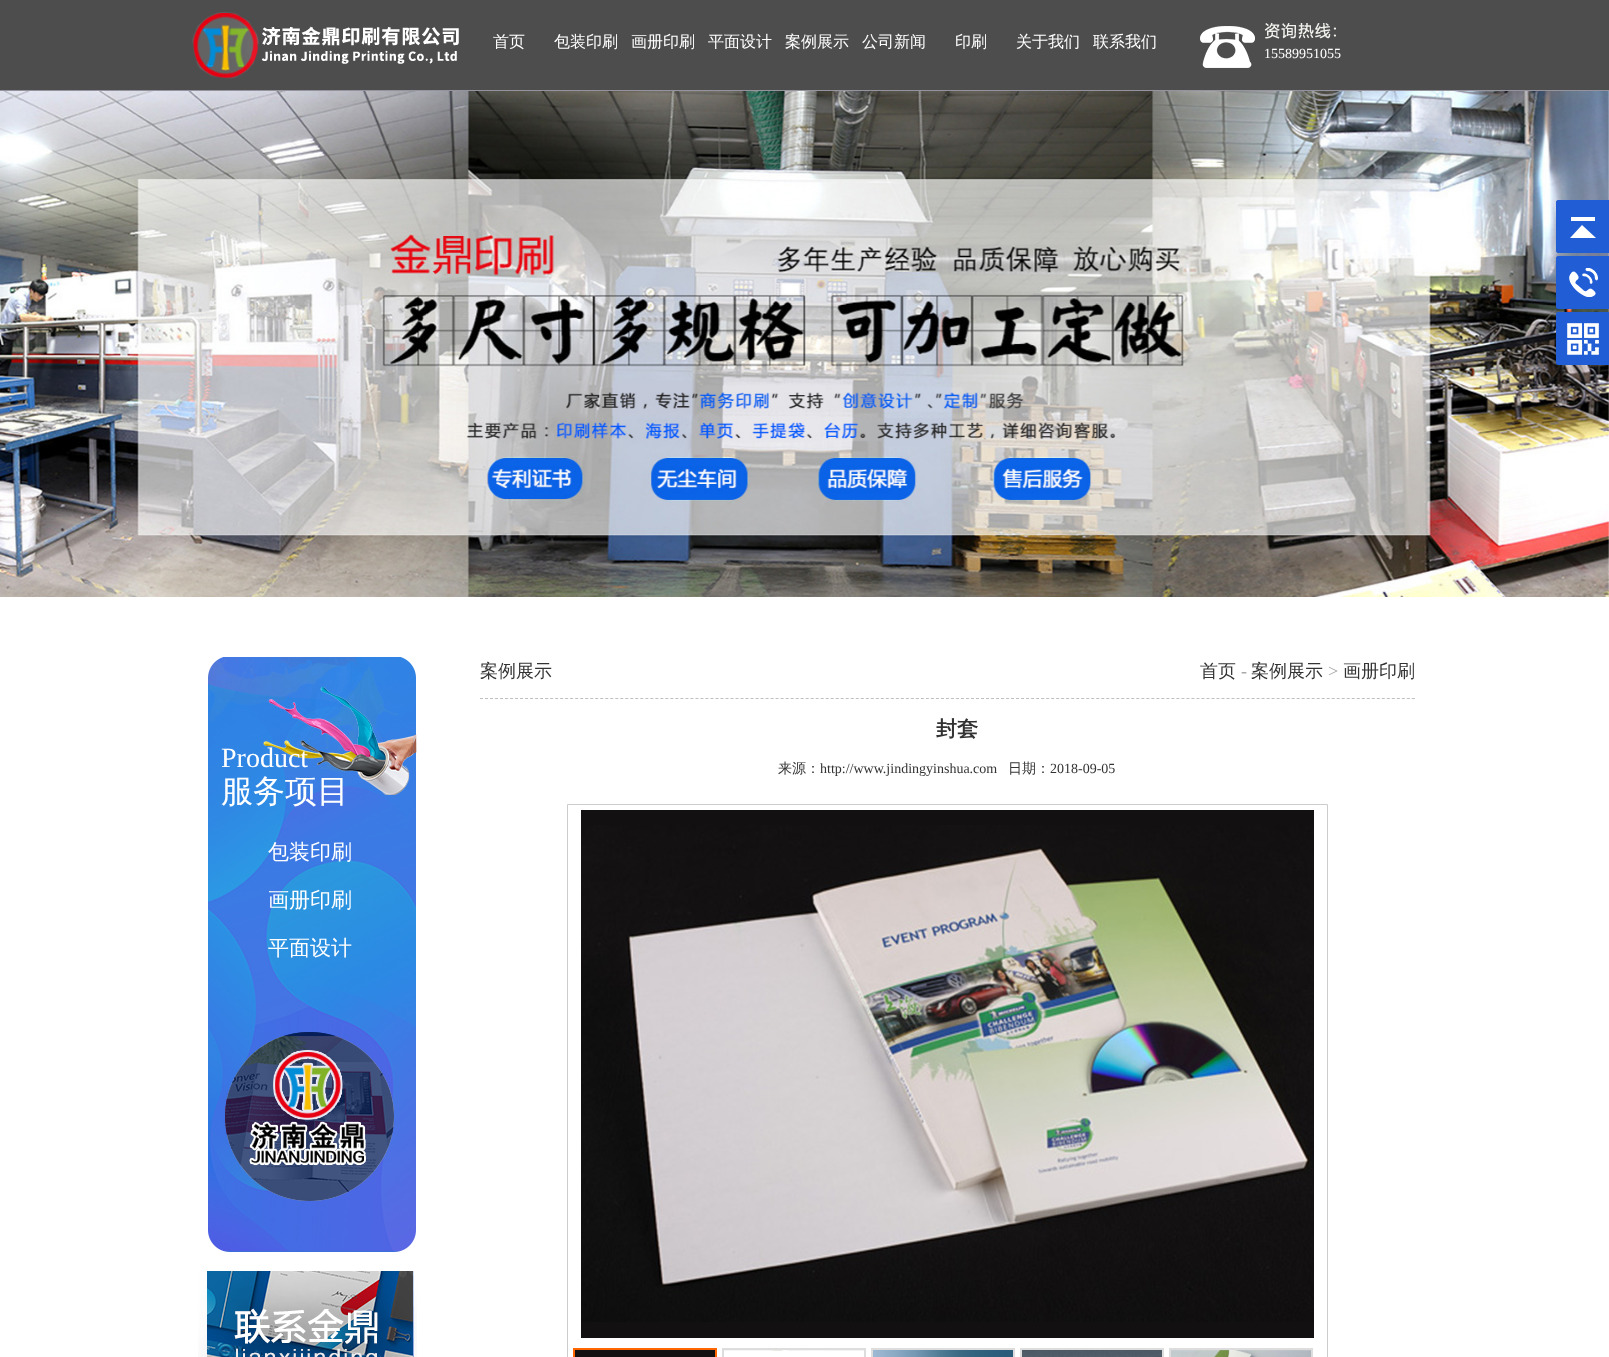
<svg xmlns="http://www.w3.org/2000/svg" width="1609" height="1357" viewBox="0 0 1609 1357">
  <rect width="100%" height="100%" fill="#fff"/>
  <path d="M0 0h1609v90H0z" fill="#4d4d4d"/>
  <path d="M0 90h1609v1H0z" fill="#95939e"/>
  <image x="192" y="12" width="267" height="67" href="img/1.png"/>
  <image x="1200" y="22" width="136" height="46" href="img/2.png"/>
  <image x="0" y="91" width="1609" height="506" href="img/3.png"/>
  <rect x="1556" y="200" width="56" height="53" rx="3" fill="#215dd4"/>
  <image x="1556" y="200" width="40" height="53" href="img/4.png"/>
  <rect x="1556" y="256" width="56" height="53" rx="3" fill="#215dd4"/>
  <image x="1556" y="256" width="42" height="53" href="img/5.png"/>
  <rect x="1556" y="312" width="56" height="53" rx="3" fill="#215dd4"/>
  <image x="1556" y="312" width="43" height="53" href="img/6.png"/>
  <path d="M480 698.5H1415" fill="none" stroke="#c0bfbf" stroke-dasharray="3 2.01"/>
  <path d="M567.5 804.5h760v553H567.5z" fill="none" stroke="#ccc"/>
  <image x="581" y="810" width="733" height="528" href="img/7.png"/>
  <path d="M574 1349h142v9H574z" fill="none" stroke="#f60" stroke-width="2"/>
  <path d="M575 1350h140v7H575z" fill="#121011"/>
  <path d="M723 1349h142v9H723z" fill="none" stroke="#ddd" stroke-width="2"/>
  <image x="724" y="1350" width="140" height="1" href="img/8.png"/>
  <path d="M872 1349h142v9H872z" fill="none" stroke="#ddd" stroke-width="2"/>
  <image x="873" y="1350" width="140" height="7" href="img/9.png"/>
  <path d="M1021 1349h142v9H1021z" fill="none" stroke="#ddd" stroke-width="2"/>
  <image x="1022" y="1350" width="140" height="7" href="img/10.png"/>
  <path d="M1170 1349h142v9H1170z" fill="none" stroke="#ddd" stroke-width="2"/>
  <image x="1171" y="1350" width="140" height="7" href="img/11.png"/>
  <image x="208" y="657" width="209" height="595" href="img/12.png"/>
  <image x="198" y="1271" width="219" height="86" href="img/13.png"/>
  <g font-family="WenQuanYi Zen Hei" font-size="16" font-weight="500" fill="#fff">
    <text x="493" y="47">首页</text>
    <text x="554" y="47">包装印刷</text>
    <text x="631" y="47">画册印刷</text>
    <text x="708" y="47">平面设计</text>
    <text x="785" y="47">案例展示</text>
    <text x="862" y="47">公司新闻</text>
    <text x="955" y="47">印刷</text>
    <text x="1016" y="47">关于我们</text>
    <text x="1093" y="47">联系我们</text>
  </g>
  <text x="1264" y="58" font-family="Liberation Serif" font-size="14" fill="#fff">15589951055</text>
  <g font-family="WenQuanYi Zen Hei" font-size="18" font-weight="500" fill="#333">
    <text x="480" y="677">案例展示</text>
    <text x="1200" y="677">首页</text>
  </g>
  <text x="1241" y="677" font-family="Liberation Serif" font-size="18" fill="#a4a1a1">-</text>
  <text x="1251" y="677" font-family="WenQuanYi Zen Hei" font-size="18" font-weight="500" fill="#333">案例展示</text>
  <text x="1328" y="677" font-family="Liberation Serif" font-size="18" fill="#a4a1a1">&gt;</text>
  <text x="1343" y="677" font-family="WenQuanYi Zen Hei" font-size="18" font-weight="500" fill="#333">画册印刷</text>
  <text x="936" y="736" font-family="WenQuanYi Zen Hei" font-size="21" font-weight="bold" fill="#333">封套</text>
  <text x="778" y="773" font-family="WenQuanYi Zen Hei" font-size="14" font-weight="500" fill="#333">来源：</text>
  <text x="820" y="773" font-family="Liberation Serif" font-size="14" fill="#333">http://www.jindingyinshua.com</text>
  <text x="1008" y="773" font-family="WenQuanYi Zen Hei" font-size="14" font-weight="500" fill="#333">日期：</text>
  <text x="1050" y="773" font-family="Liberation Serif" font-size="14" fill="#333">2018-09-05</text>
  <text x="221" y="767" font-family="Liberation Serif" font-size="28" fill="#fff">Product</text>
  <text x="221" y="802" font-family="WenQuanYi Zen Hei" font-size="32" font-weight="500" fill="#fff">服务项目</text>
  <g font-family="WenQuanYi Zen Hei" font-size="21" font-weight="500" fill="#fff">
    <text x="268" y="859">包装印刷</text>
    <text x="268" y="907">画册印刷</text>
    <text x="268" y="955">平面设计</text>
  </g>
</svg>
